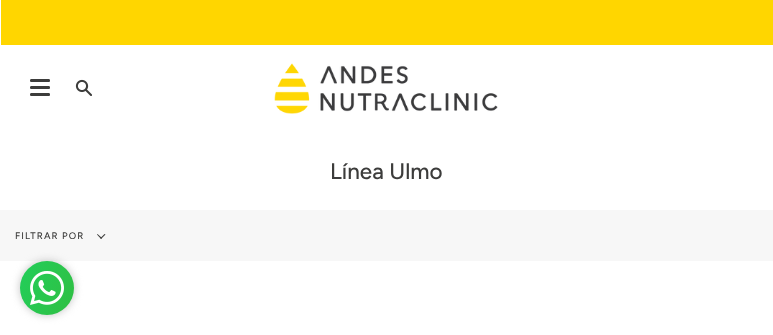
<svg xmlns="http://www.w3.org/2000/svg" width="773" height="335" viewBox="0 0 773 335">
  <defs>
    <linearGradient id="g1" gradientUnits="userSpaceOnUse" x1="14" y1="275" x2="80" y2="301"><stop offset="0" stop-color="#22ce5a"/><stop offset="0" stop-color="#22ce5a"/><stop offset="1" stop-color="#30bf42"/></linearGradient>
  </defs>
  <rect width="100%" height="100%" fill="#fff"/>
  <path d="M1 0h772v45H1z" fill="#ffd600"/>
  <path d="M31.5 79H47V82H31.5C30.5 82 30 81.5 30 80.5C30 79.5 30.5 79 31.5 79Z" fill="#3c3c3b"/>
  <path d="M33 79H48.5C49.5 79 50 79.5 50 80.5C50 81.5 49.5 82 48.5 82H33Z" fill="#3c3c3b"/>
  <path d="M31.5 86H47V89H31.5C30.5 89 30 88.5 30 87.5C30 86.5 30.5 86 31.5 86Z" fill="#3c3c3b"/>
  <path d="M33 86H48.5C49.5 86 50 86.5 50 87.5C50 88.5 49.5 89 48.5 89H33Z" fill="#3c3c3b"/>
  <path d="M31.5 93H47V96H31.5C30.5 96 30 95.5 30 94.5C30 93.5 30.5 93 31.5 93Z" fill="#3c3c3b"/>
  <path d="M33 93H48.5C49.5 93 50 93.5 50 94.5C50 95.5 49.5 96 48.5 96H33Z" fill="#3c3c3b"/>
  <image x="75" y="79" width="17" height="17" href="img/1.png"/>
  <image x="274" y="63" width="224" height="51" href="img/2.png"/>
  <path d="M0 210h773v51H0z" fill="#f7f7f7"/>
  <path d="M100.5 238L104.5 234L105.5 234.5L101 239Z" fill="#3c3c3b"/>
  <path d="M97 234.5L97.5 234L102 238L101 239Z" fill="#3c3c3b"/>
  <rect x="20" y="261" width="54" height="54" rx="27" fill="#c2c2c2" filter="blur(4px)"/>
  <circle cx="47" cy="288" r="27" fill="url(#g1)"/>
  <image x="30" y="271" width="34" height="34" href="img/3.png"/>
  <text x="330" y="179" font-family="Figtree" font-size="22.5" font-weight="500" fill="#3c3c3b">Línea Ulmo</text>
  <text x="15" y="239" font-family="Figtree" font-size="9.5" font-weight="500" letter-spacing="1.1" fill="#3c3c3b">FILTRAR POR</text>
</svg>
